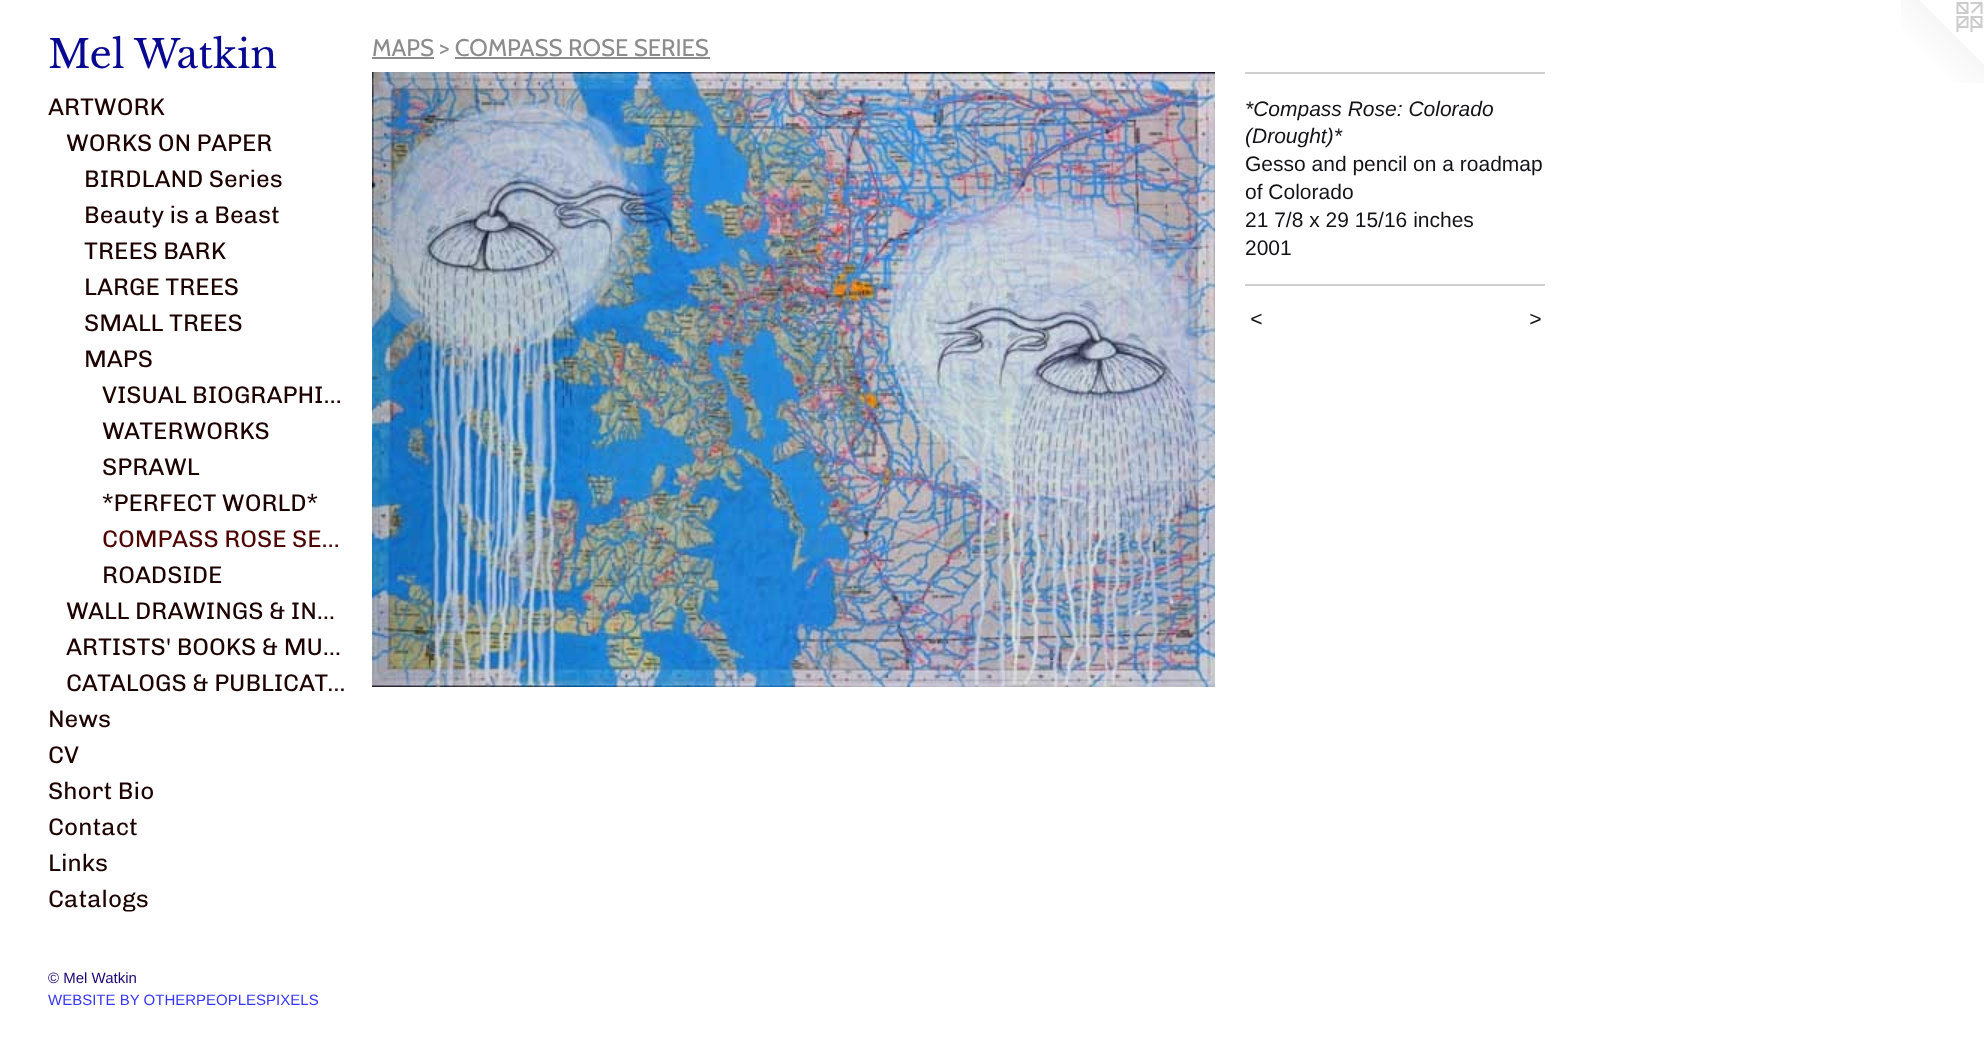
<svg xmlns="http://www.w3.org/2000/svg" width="1984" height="1045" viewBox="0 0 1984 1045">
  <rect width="100%" height="100%" fill="#fff"/>
  <path d="M372 57h62v2H372z" fill="#8c8c8c"/>
  <path d="M455 57h255v2H455z" fill="#8c8c8c"/>
  <image x="372" y="72" width="843" height="615" href="img/1.png"/>
  <path d="M1245 72h300v2H1245z" fill="#d0d0d0"/>
  <path d="M1245 284h300v2H1245z" fill="#d0d0d0"/>
  <image x="1901" y="0" width="83" height="83" href="img/2.png"/>
  <text x="48" y="68" font-family="Libre Baskerville" font-size="39" fill="#080891">Mel Watkin</text>
  <g font-family="Chivo" font-size="24" font-weight="500" fill="#1d0202">
    <text x="48" y="115">ARTWORK</text>
    <text x="66" y="151">WORKS ON PAPER</text>
    <text x="84" y="187">BIRDLAND Series</text>
    <text x="84" y="223">Beauty is a Beast</text>
    <text x="84" y="259">TREES BARK</text>
    <text x="84" y="295">LARGE TREES</text>
    <text x="84" y="331">SMALL TREES</text>
    <text x="84" y="367">MAPS</text>
    <text x="102" y="403">VISUAL BIOGRAPHI…</text>
    <text x="102" y="439">WATERWORKS</text>
    <text x="102" y="475">SPRAWL</text>
    <text x="102" y="511">*PERFECT WORLD*</text>
  </g>
  <text x="102" y="547" font-family="Chivo" font-size="24" font-weight="500" fill="#4d0505">COMPASS ROSE SE…</text>
  <g font-family="Chivo" font-size="24" font-weight="500" fill="#1d0202">
    <text x="102" y="583">ROADSIDE</text>
    <text x="66" y="619">WALL DRAWINGS &amp; IN…</text>
    <text x="66" y="655">ARTISTS' BOOKS &amp; MU…</text>
    <text x="66" y="691">CATALOGS &amp; PUBLICAT…</text>
    <text x="48" y="727">News</text>
    <text x="48" y="763">CV</text>
    <text x="48" y="799">Short Bio</text>
    <text x="48" y="835">Contact</text>
    <text x="48" y="871">Links</text>
    <text x="48" y="907">Catalogs</text>
  </g>
  <text x="48" y="983" font-family="Liberation Sans" font-size="15" fill="#1e0675">© Mel Watkin</text>
  <text x="48" y="1005" font-family="Liberation Sans" font-size="15" fill="#3937f6">WEBSITE BY OTHERPEOPLESPIXELS</text>
  <text x="372" y="56" font-family="Cabin" font-size="24" fill="#8c8c8c">MAPS &gt; COMPASS ROSE SERIES</text>
  <g font-family="Liberation Sans" font-size="21" font-style="italic" fill="#141216">
    <text x="1245" y="116">*Compass Rose: Colorado</text>
    <text x="1245" y="143">(Drought)*</text>
  </g>
  <g font-family="Liberation Sans" font-size="21" fill="#141216">
    <text x="1245" y="171">Gesso and pencil on a roadmap</text>
    <text x="1245" y="199">of Colorado</text>
    <text x="1245" y="227">21 7/8 x 29 15/16 inches</text>
    <text x="1245" y="255">2001</text>
  </g>
  <g font-family="Liberation Sans" font-size="21" font-style="italic" letter-spacing="2" fill="#141216">
    <text x="1250" y="326">&lt;</text>
    <text x="1529" y="326">&gt;</text>
  </g>
</svg>
